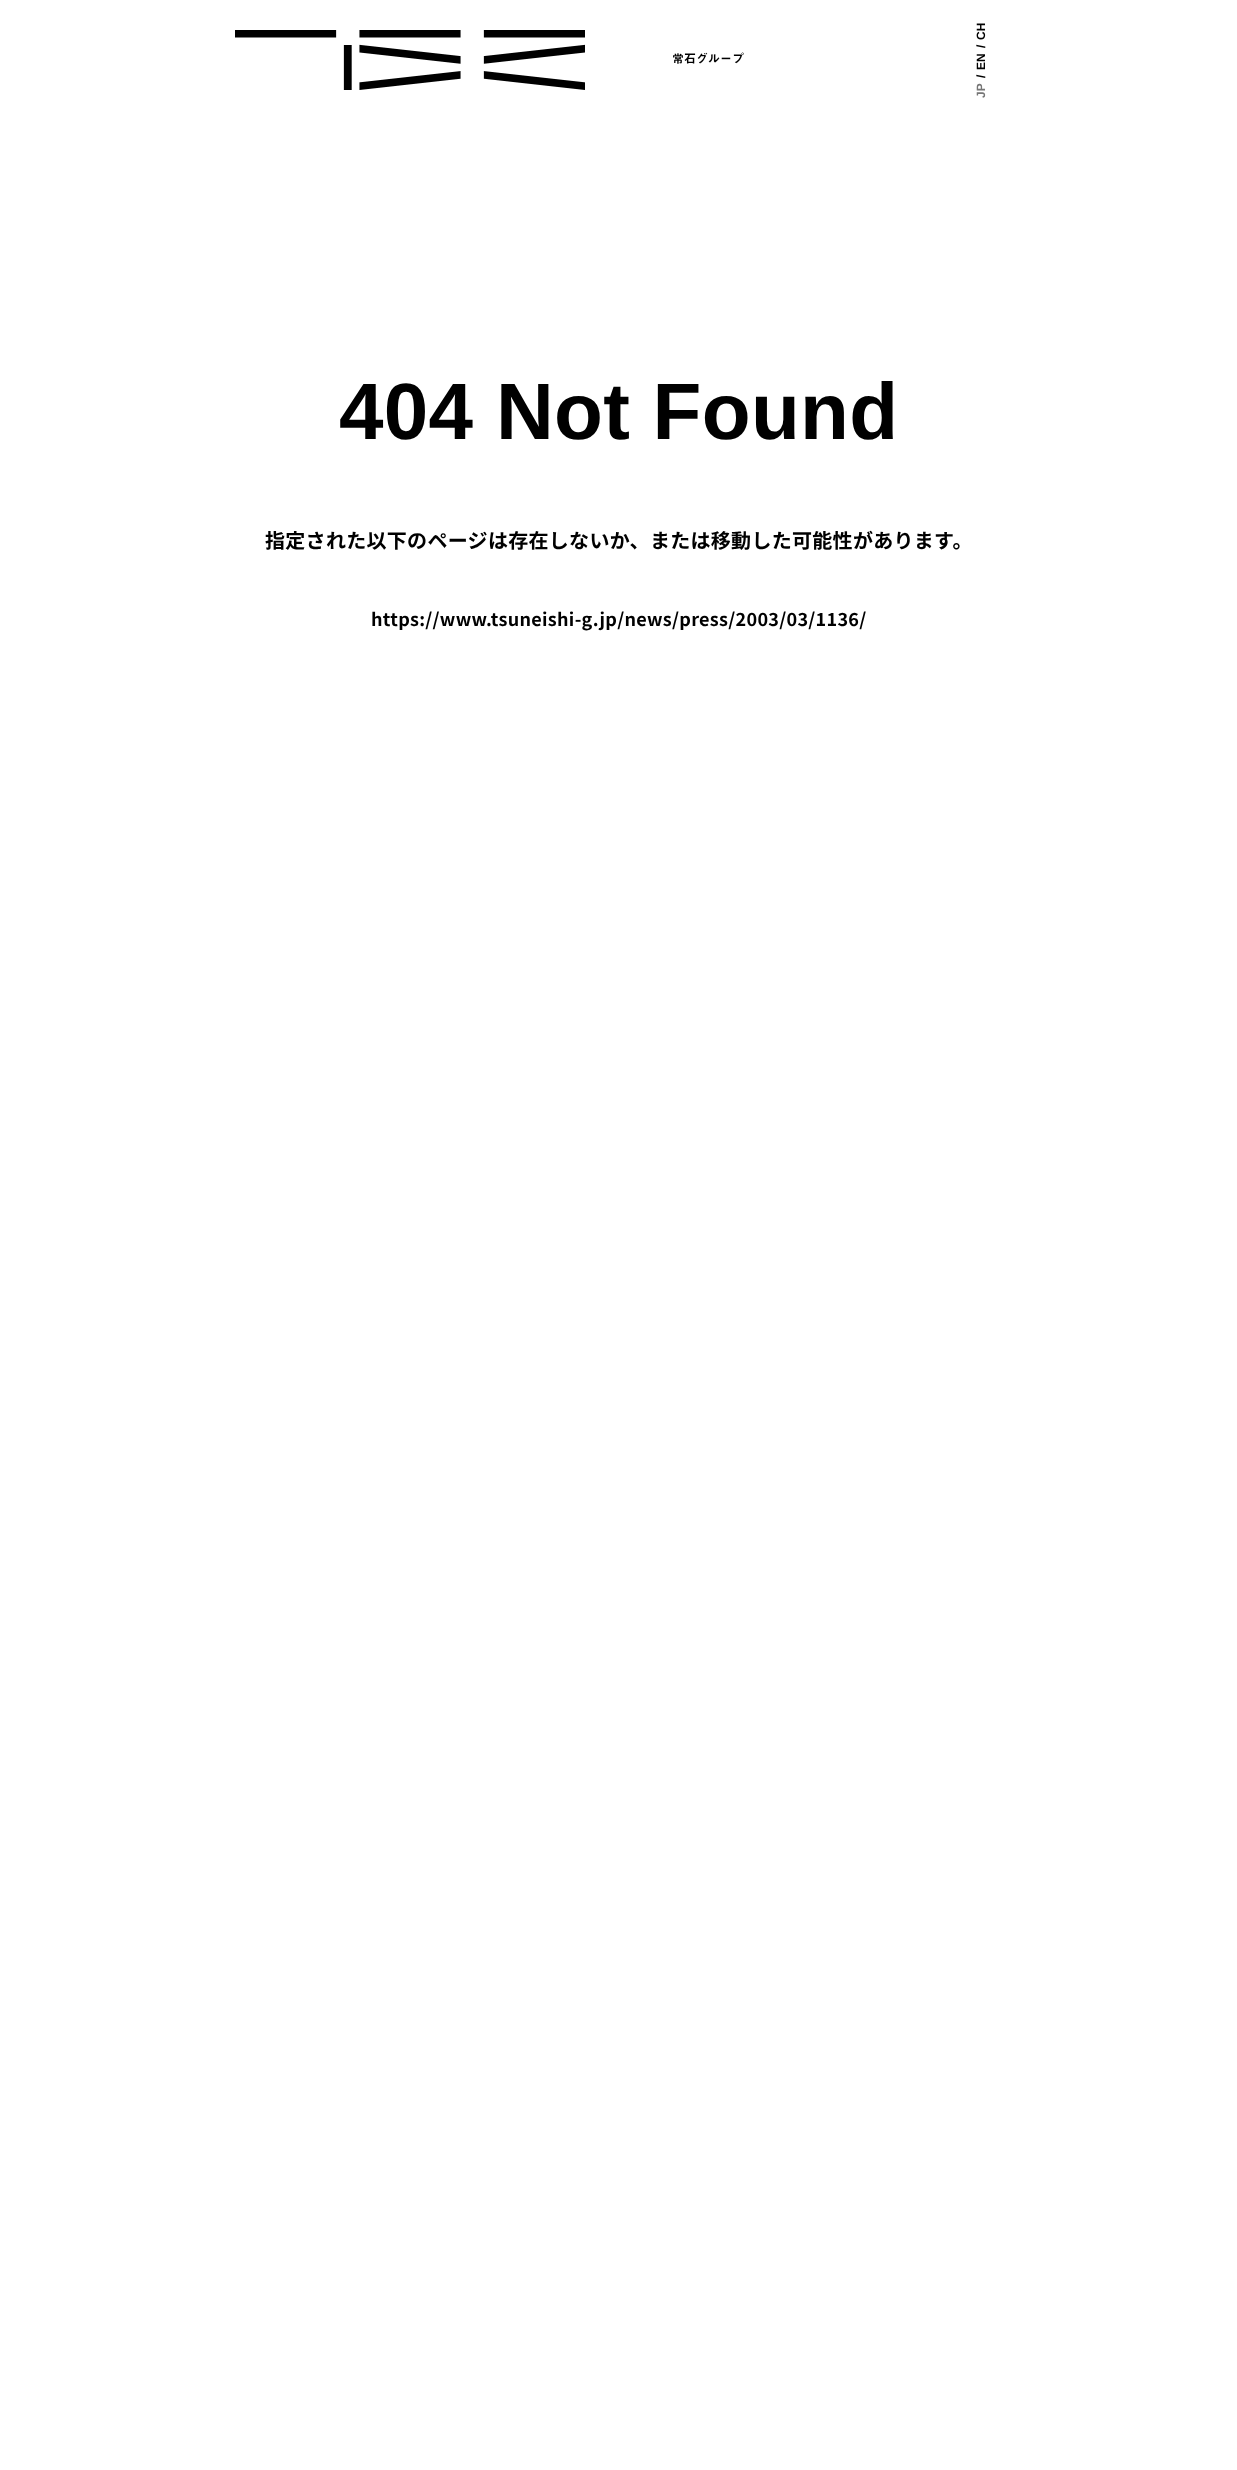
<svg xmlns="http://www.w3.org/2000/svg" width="1237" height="2470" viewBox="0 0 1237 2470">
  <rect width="100%" height="100%" fill="#fff"/>
  <image x="235" y="30" width="350" height="60" href="img/1.png"/>
  <text x="672" y="63" font-family="'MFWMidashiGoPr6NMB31'" font-size="12" font-weight="600" fill="#000">常石グループ</text>
  <g font-family="Liberation Sans" font-size="12" font-weight="bold" fill="#000">
    <text x="985" y="40" transform="rotate(-90 985 40)">CH</text>
    <text x="985" y="48" transform="rotate(-90 985 48)">/</text>
    <text x="985" y="70" transform="rotate(-90 985 70)">EN</text>
    <text x="985" y="78" transform="rotate(-90 985 78)">/</text>
  </g>
  <text x="985" y="98" transform="rotate(-90 985 98)" font-family="Liberation Sans" font-size="12" font-weight="bold" fill="#767676">JP</text>
  <text x="339" y="439" font-family="Liberation Sans" font-size="80" font-weight="bold" letter-spacing="0.3" fill="#000">404 Not Found</text>
  <text x="265" y="548" font-family="Noto Sans CJK JP" font-size="20" font-weight="bold" letter-spacing="0.3" fill="#000">指定された以下のページは存在しないか、または移動した可能性があります。</text>
  <text x="371" y="626" font-family="Noto Sans CJK JP" font-size="18" font-weight="bold" letter-spacing="0.3" fill="#000">https://www.tsuneishi-g.jp/news/press/2003/03/1136/</text>
</svg>
